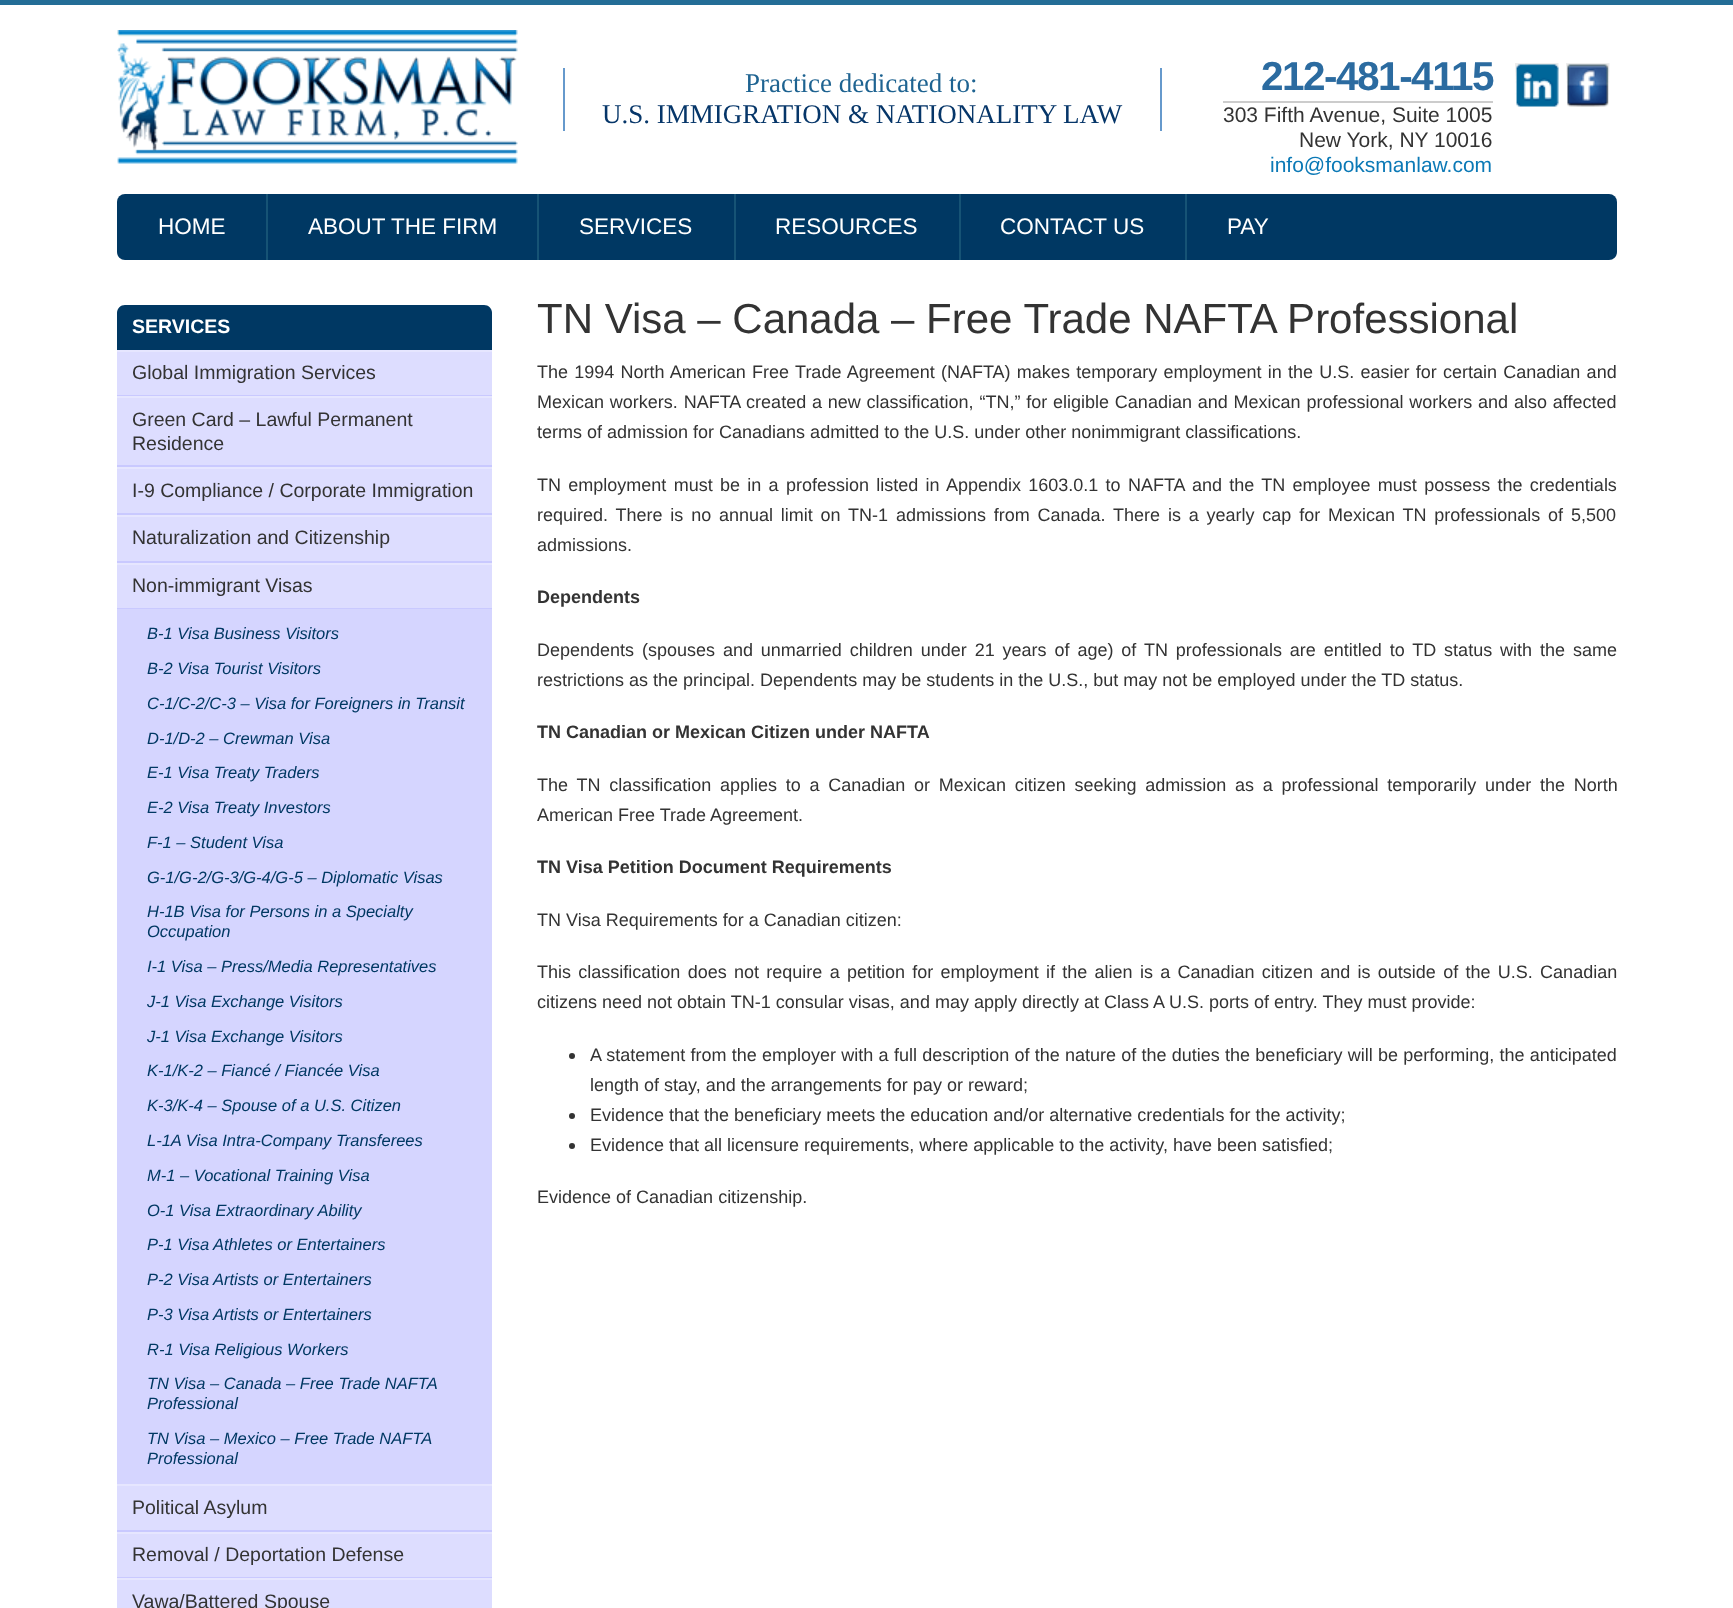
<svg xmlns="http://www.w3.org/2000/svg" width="1733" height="1608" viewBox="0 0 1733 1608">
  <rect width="100%" height="100%" fill="#fff"/>
  <path d="M0 0h1733v5H0z" fill="#236d96"/>
  <image x="117" y="30" width="401" height="134" href="img/1.png"/>
  <path d="M1160 68h2v63H1160z" fill="#69c"/>
  <path d="M563 68h2v63H563z" fill="#69c"/>
  <path d="M1223 101h270v2H1223z" fill="#ccc"/>
  <image x="1515" y="63" width="44" height="44" href="img/2.png"/>
  <image x="1566" y="63" width="44" height="44" href="img/3.png"/>
  <rect x="117" y="194" width="1500" height="66" rx="8" fill="#003863"/>
  <path d="M266 194h2v66H266z" fill="#165375"/>
  <path d="M537 194h2v66H537z" fill="#165375"/>
  <path d="M734 194h2v66H734z" fill="#165375"/>
  <path d="M959 194h2v66H959z" fill="#165375"/>
  <path d="M1185 194h2v66H1185z" fill="#165375"/>
  <path d="M125 305H484C488.5 305 492 308.5 492 313V350H117V313C117 308.5 120.5 305 125 305Z" fill="#003863"/>
  <path d="M117 352h375v43H117z" fill="#ddf"/>
  <path d="M117 350h375v2H117z" fill="#e6e6ff"/>
  <path d="M117 395h375v1H117z" fill="#c9c9ff"/>
  <path d="M117 398h375v67H117z" fill="#ddf"/>
  <path d="M117 396h375v2H117z" fill="#e6e6ff"/>
  <path d="M117 465h375v2H117z" fill="#c9c9ff"/>
  <path d="M117 469h375v44H117z" fill="#ddf"/>
  <path d="M117 467h375v2H117z" fill="#e6e6ff"/>
  <path d="M117 513h375v2H117z" fill="#c9c9ff"/>
  <path d="M117 517h375v44H117z" fill="#ddf"/>
  <path d="M117 515h375v2H117z" fill="#e6e6ff"/>
  <path d="M117 561h375v2H117z" fill="#c9c9ff"/>
  <path d="M117 565h375v43H117z" fill="#ddf"/>
  <path d="M117 563h375v2H117z" fill="#e6e6ff"/>
  <path d="M117 608h375v1H117z" fill="#c9c9ff"/>
  <path d="M117 609h375v875H117z" fill="#d5d5ff"/>
  <path d="M117 1486h375v44H117z" fill="#ddf"/>
  <path d="M117 1484h375v2H117z" fill="#e6e6ff"/>
  <path d="M117 1530h375v2H117z" fill="#c9c9ff"/>
  <path d="M117 1534h375v43H117z" fill="#ddf"/>
  <path d="M117 1532h375v2H117z" fill="#e6e6ff"/>
  <path d="M117 1577h375v1H117z" fill="#c9c9ff"/>
  <path d="M117 1580h375v28H117z" fill="#ddf"/>
  <path d="M117 1578h375v2H117z" fill="#e6e6ff"/>
  <circle cx="572" cy="1056" r="3" fill="#333"/>
  <circle cx="572" cy="1116" r="3" fill="#333"/>
  <circle cx="572" cy="1146" r="3" fill="#333"/>
  <text x="745" y="92" font-family="Liberation Serif" font-size="27" fill="#1e6391">Practice dedicated to:</text>
  <text x="602" y="123" font-family="Liberation Serif" font-size="27" fill="#063669">U.S. IMMIGRATION &amp; NATIONALITY LAW</text>
  <text x="1261" y="90" font-family="Liberation Sans" font-size="40.5" font-weight="bold" letter-spacing="-1.5" fill="#2b6ba0">212-481-4115</text>
  <g font-family="Liberation Sans" font-size="21" fill="#333">
    <text x="1223" y="122">303 Fifth Avenue, Suite 1005</text>
    <text x="1299" y="147">New York, NY 10016</text>
  </g>
  <text x="1270" y="172" font-family="Liberation Sans" font-size="21" fill="#0b79b6">info@fooksmanlaw.com</text>
  <g font-family="Liberation Sans" font-size="22.5" fill="#fff">
    <text x="158" y="234">HOME</text>
    <text x="308" y="234">ABOUT THE FIRM</text>
    <text x="579" y="234">SERVICES</text>
    <text x="775" y="234">RESOURCES</text>
    <text x="1000" y="234">CONTACT US</text>
    <text x="1227" y="234">PAY</text>
  </g>
  <text x="132" y="333" font-family="Liberation Sans" font-size="19.5" font-weight="bold" fill="#fff">SERVICES</text>
  <g font-family="Liberation Sans" font-size="19.5" fill="#333">
    <text x="132" y="379">Global Immigration Services</text>
    <text x="132" y="426">Green Card – Lawful Permanent</text>
    <text x="132" y="450">Residence</text>
    <text x="132" y="497">I-9 Compliance / Corporate Immigration</text>
    <text x="132" y="544">Naturalization and Citizenship</text>
    <text x="132" y="592">Non-immigrant Visas</text>
  </g>
  <g font-family="Liberation Sans" font-size="16.5" font-style="italic" fill="#003863">
    <text x="147" y="639">B-1 Visa Business Visitors</text>
    <text x="147" y="674">B-2 Visa Tourist Visitors</text>
    <text x="147" y="709">C-1/C-2/C-3 – Visa for Foreigners in Transit</text>
    <text x="147" y="744">D-1/D-2 – Crewman Visa</text>
    <text x="147" y="778">E-1 Visa Treaty Traders</text>
    <text x="147" y="813">E-2 Visa Treaty Investors</text>
    <text x="147" y="848">F-1 – Student Visa</text>
    <text x="147" y="883">G-1/G-2/G-3/G-4/G-5 – Diplomatic Visas</text>
    <text x="147" y="917">H-1B Visa for Persons in a Specialty</text>
    <text x="147" y="937">Occupation</text>
    <text x="147" y="972">I-1 Visa – Press/Media Representatives</text>
    <text x="147" y="1007">J-1 Visa Exchange Visitors</text>
    <text x="147" y="1042">J-1 Visa Exchange Visitors</text>
    <text x="147" y="1076">K-1/K-2 – Fiancé / Fiancée Visa</text>
    <text x="147" y="1111">K-3/K-4 – Spouse of a U.S. Citizen</text>
    <text x="147" y="1146">L-1A Visa Intra-Company Transferees</text>
    <text x="147" y="1181">M-1 – Vocational Training Visa</text>
    <text x="147" y="1216">O-1 Visa Extraordinary Ability</text>
    <text x="147" y="1250">P-1 Visa Athletes or Entertainers</text>
    <text x="147" y="1285">P-2 Visa Artists or Entertainers</text>
    <text x="147" y="1320">P-3 Visa Artists or Entertainers</text>
    <text x="147" y="1355">R-1 Visa Religious Workers</text>
    <text x="147" y="1389">TN Visa – Canada – Free Trade NAFTA</text>
    <text x="147" y="1409">Professional</text>
    <text x="147" y="1444">TN Visa – Mexico – Free Trade NAFTA</text>
    <text x="147" y="1464">Professional</text>
  </g>
  <g font-family="Liberation Sans" font-size="19.5" fill="#333">
    <text x="132" y="1514">Political Asylum</text>
    <text x="132" y="1561">Removal / Deportation Defense</text>
    <text x="132" y="1608">Vawa/Battered Spouse</text>
  </g>
  <text x="537" y="333" font-family="Liberation Sans" font-size="42" fill="#333">TN Visa – Canada – Free Trade NAFTA Professional</text>
  <g font-family="Liberation Sans" font-size="18" fill="#333">
    <text x="537" y="378" word-spacing="1.25">The 1994 North American Free Trade Agreement (NAFTA) makes temporary employment in the U.S. easier for certain Canadian and</text>
    <text x="537" y="408" word-spacing="0.8">Mexican workers. NAFTA created a new classification, “TN,” for eligible Canadian and Mexican professional workers and also affected</text>
    <text x="537" y="438">terms of admission for Canadians admitted to the U.S. under other nonimmigrant classifications.</text>
    <text x="537" y="491" word-spacing="2.3">TN employment must be in a profession listed in Appendix 1603.0.1 to NAFTA and the TN employee must possess the credentials</text>
    <text x="537" y="521" word-spacing="2.8">required. There is no annual limit on TN-1 admissions from Canada. There is a yearly cap for Mexican TN professionals of 5,500</text>
    <text x="537" y="551">admissions.</text>
  </g>
  <text x="537" y="603" font-family="Liberation Sans" font-size="18" font-weight="bold" fill="#333">Dependents</text>
  <g font-family="Liberation Sans" font-size="18" fill="#333">
    <text x="537" y="656" word-spacing="2.9">Dependents (spouses and unmarried children under 21 years of age) of TN professionals are entitled to TD status with the same</text>
    <text x="537" y="686">restrictions as the principal. Dependents may be students in the U.S., but may not be employed under the TD status.</text>
  </g>
  <text x="537" y="738" font-family="Liberation Sans" font-size="18" font-weight="bold" fill="#333">TN Canadian or Mexican Citizen under NAFTA</text>
  <g font-family="Liberation Sans" font-size="18" fill="#333">
    <text x="537" y="791" word-spacing="3.75">The TN classification applies to a Canadian or Mexican citizen seeking admission as a professional temporarily under the North</text>
    <text x="537" y="821">American Free Trade Agreement.</text>
  </g>
  <text x="537" y="873" font-family="Liberation Sans" font-size="18" font-weight="bold" fill="#333">TN Visa Petition Document Requirements</text>
  <g font-family="Liberation Sans" font-size="18" fill="#333">
    <text x="537" y="926">TN Visa Requirements for a Canadian citizen:</text>
    <text x="537" y="978" word-spacing="2.3">This classification does not require a petition for employment if the alien is a Canadian citizen and is outside of the U.S. Canadian</text>
    <text x="537" y="1008">citizens need not obtain TN-1 consular visas, and may apply directly at Class A U.S. ports of entry. They must provide:</text>
    <text x="590" y="1061" word-spacing="0.25">A statement from the employer with a full description of the nature of the duties the beneficiary will be performing, the anticipated</text>
    <text x="590" y="1091">length of stay, and the arrangements for pay or reward;</text>
    <text x="590" y="1121">Evidence that the beneficiary meets the education and/or alternative credentials for the activity;</text>
    <text x="590" y="1151">Evidence that all licensure requirements, where applicable to the activity, have been satisfied;</text>
    <text x="537" y="1203">Evidence of Canadian citizenship.</text>
  </g>
</svg>
